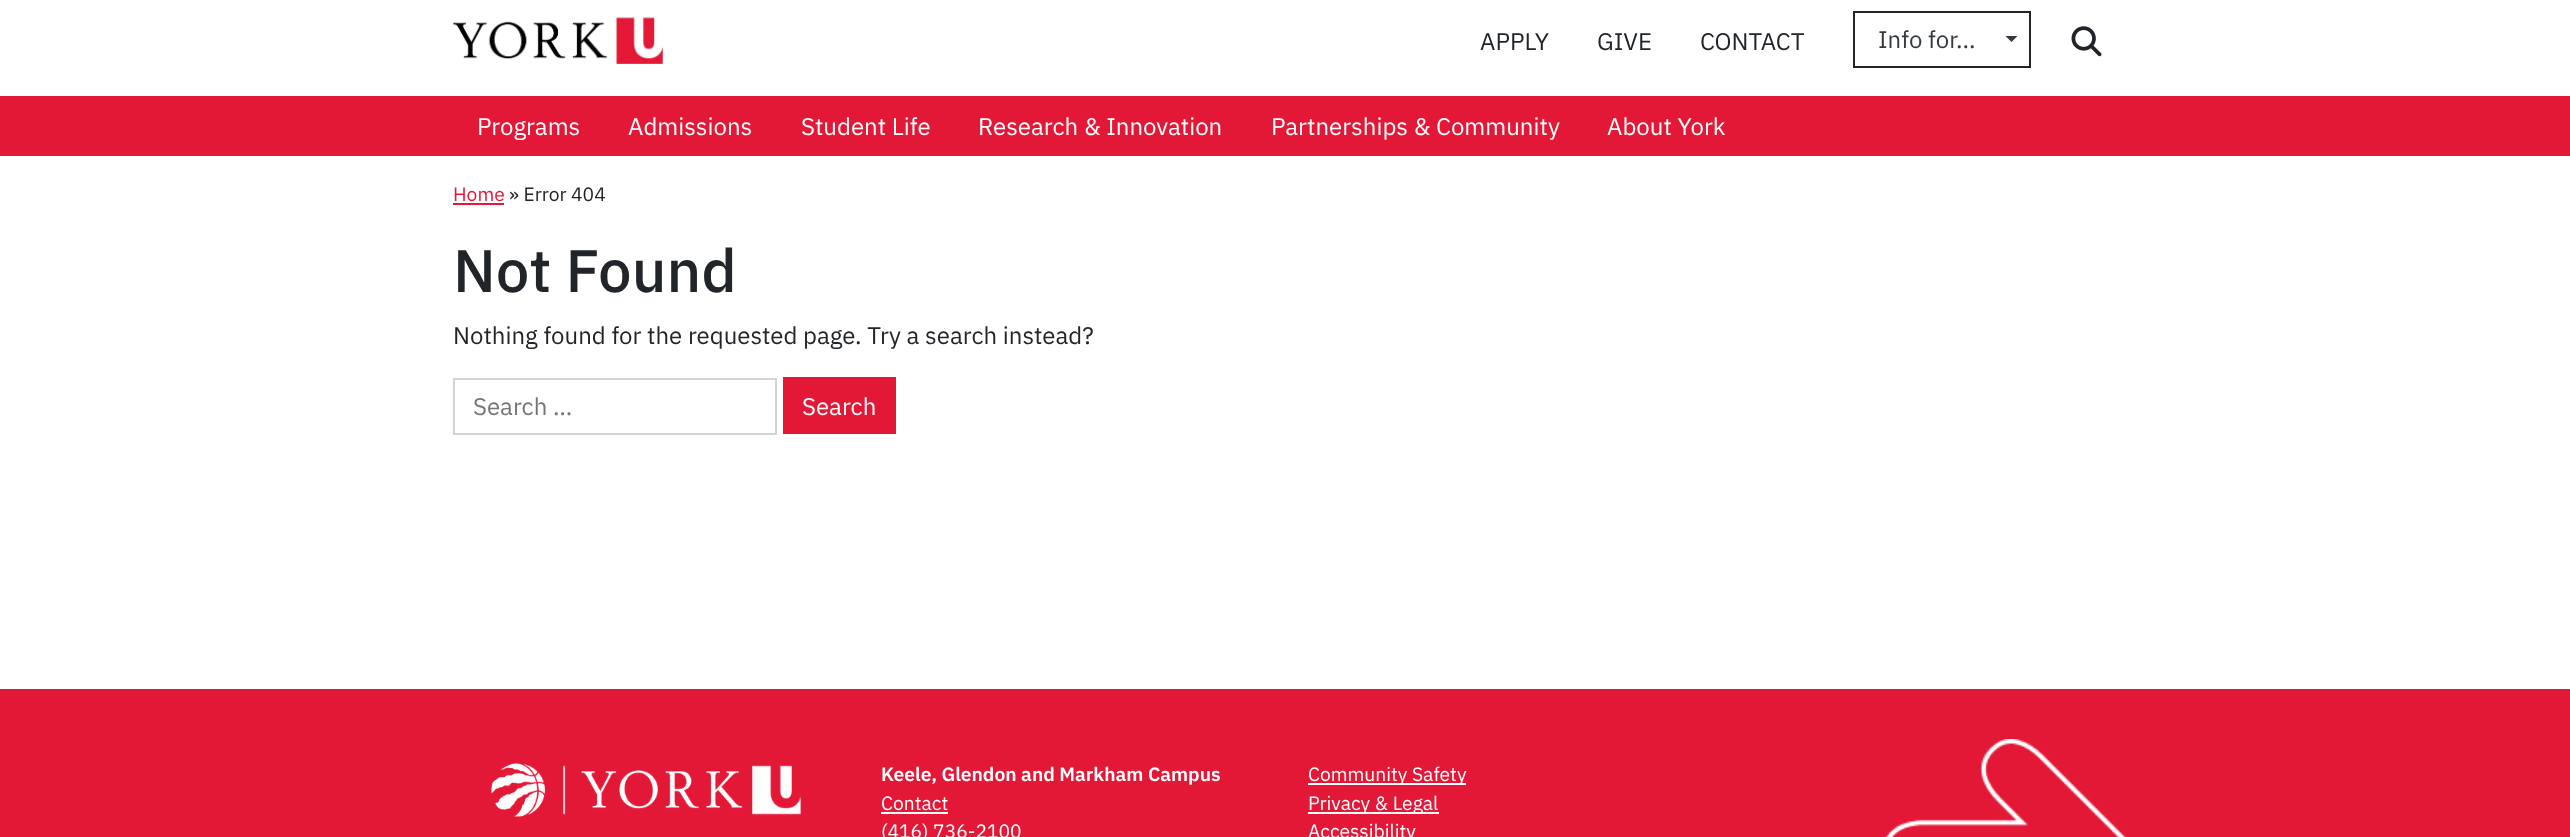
<svg xmlns="http://www.w3.org/2000/svg" width="2570" height="837" viewBox="0 0 2570 837">
  <rect width="100%" height="100%" fill="#fff"/>
  <image x="453" y="17" width="210" height="47" href="img/1.png"/>
  <path d="M1854 12h176v55H1854z" fill="none" stroke="#212529" stroke-width="2"/>
  <path d="M2005.5 36H2017.5L2011.5 42Z" fill="#343a40"/>
  <image x="2071" y="26" width="31" height="31" href="img/2.png"/>
  <path d="M0 96h2570v60H0z" fill="#e31837"/>
  <path d="M453 203h51v2H453z" fill="#e31837"/>
  <path d="M454 379h322v55H454z" fill="none" stroke="#ced4da" stroke-width="2"/>
  <path d="M783 377h113v57H783z" fill="#e31837"/>
  <path d="M0 689h2570v148H0z" fill="#e31837"/>
  <image x="1885" y="739" width="241" height="98" href="img/3.png"/>
  <image x="491" y="763" width="310" height="54" href="img/4.png"/>
  <path d="M881 812h67v2H881z" fill="#fff"/>
  <path d="M1308 783h158v2H1308z" fill="#fff"/>
  <path d="M1308 812h131v2H1308z" fill="#fff"/>
  <g font-family="IBM Plex Sans" font-size="24" fill="#212529">
    <text x="1480" y="50">APPLY</text>
    <text x="1597" y="50">GIVE</text>
    <text x="1700" y="50">CONTACT</text>
  </g>
  <text x="1878" y="48" font-family="IBM Plex Sans" font-size="24" fill="#343a40">Info for...</text>
  <g font-family="IBM Plex Sans" font-size="24" fill="#fff">
    <text x="477" y="135">Programs</text>
    <text x="628" y="135">Admissions</text>
    <text x="801" y="135">Student Life</text>
    <text x="978" y="135">Research &amp; Innovation</text>
    <text x="1271" y="135">Partnerships &amp; Community</text>
    <text x="1607" y="135">About York</text>
  </g>
  <text x="453" y="201" font-family="IBM Plex Sans" font-size="19.25" fill="#e31837">Home</text>
  <text x="509" y="201" font-family="IBM Plex Sans" font-size="19.25" fill="#212529">» Error 404</text>
  <text x="453" y="292" font-family="IBM Plex Sans" font-size="60" font-weight="500" fill="#212529">Not Found</text>
  <text x="453" y="344" font-family="IBM Plex Sans" font-size="24" fill="#212529">Nothing found for the requested page. Try a search instead?</text>
  <text x="473" y="415" font-family="IBM Plex Sans" font-size="24" fill="#757575">Search …</text>
  <text x="802" y="415" font-family="IBM Plex Sans" font-size="24" fill="#fff">Search</text>
  <text x="881" y="781" font-family="IBM Plex Sans" font-size="19.25" font-weight="600" fill="#fff">Keele, Glendon and Markham Campus</text>
  <g font-family="IBM Plex Sans" font-size="19.25" fill="#fff">
    <text x="881" y="810">Contact</text>
    <text x="881" y="838">(416) 736-2100</text>
    <text x="1308" y="781">Community Safety</text>
    <text x="1308" y="810">Privacy &amp; Legal</text>
    <text x="1308" y="838">Accessibility</text>
  </g>
</svg>
